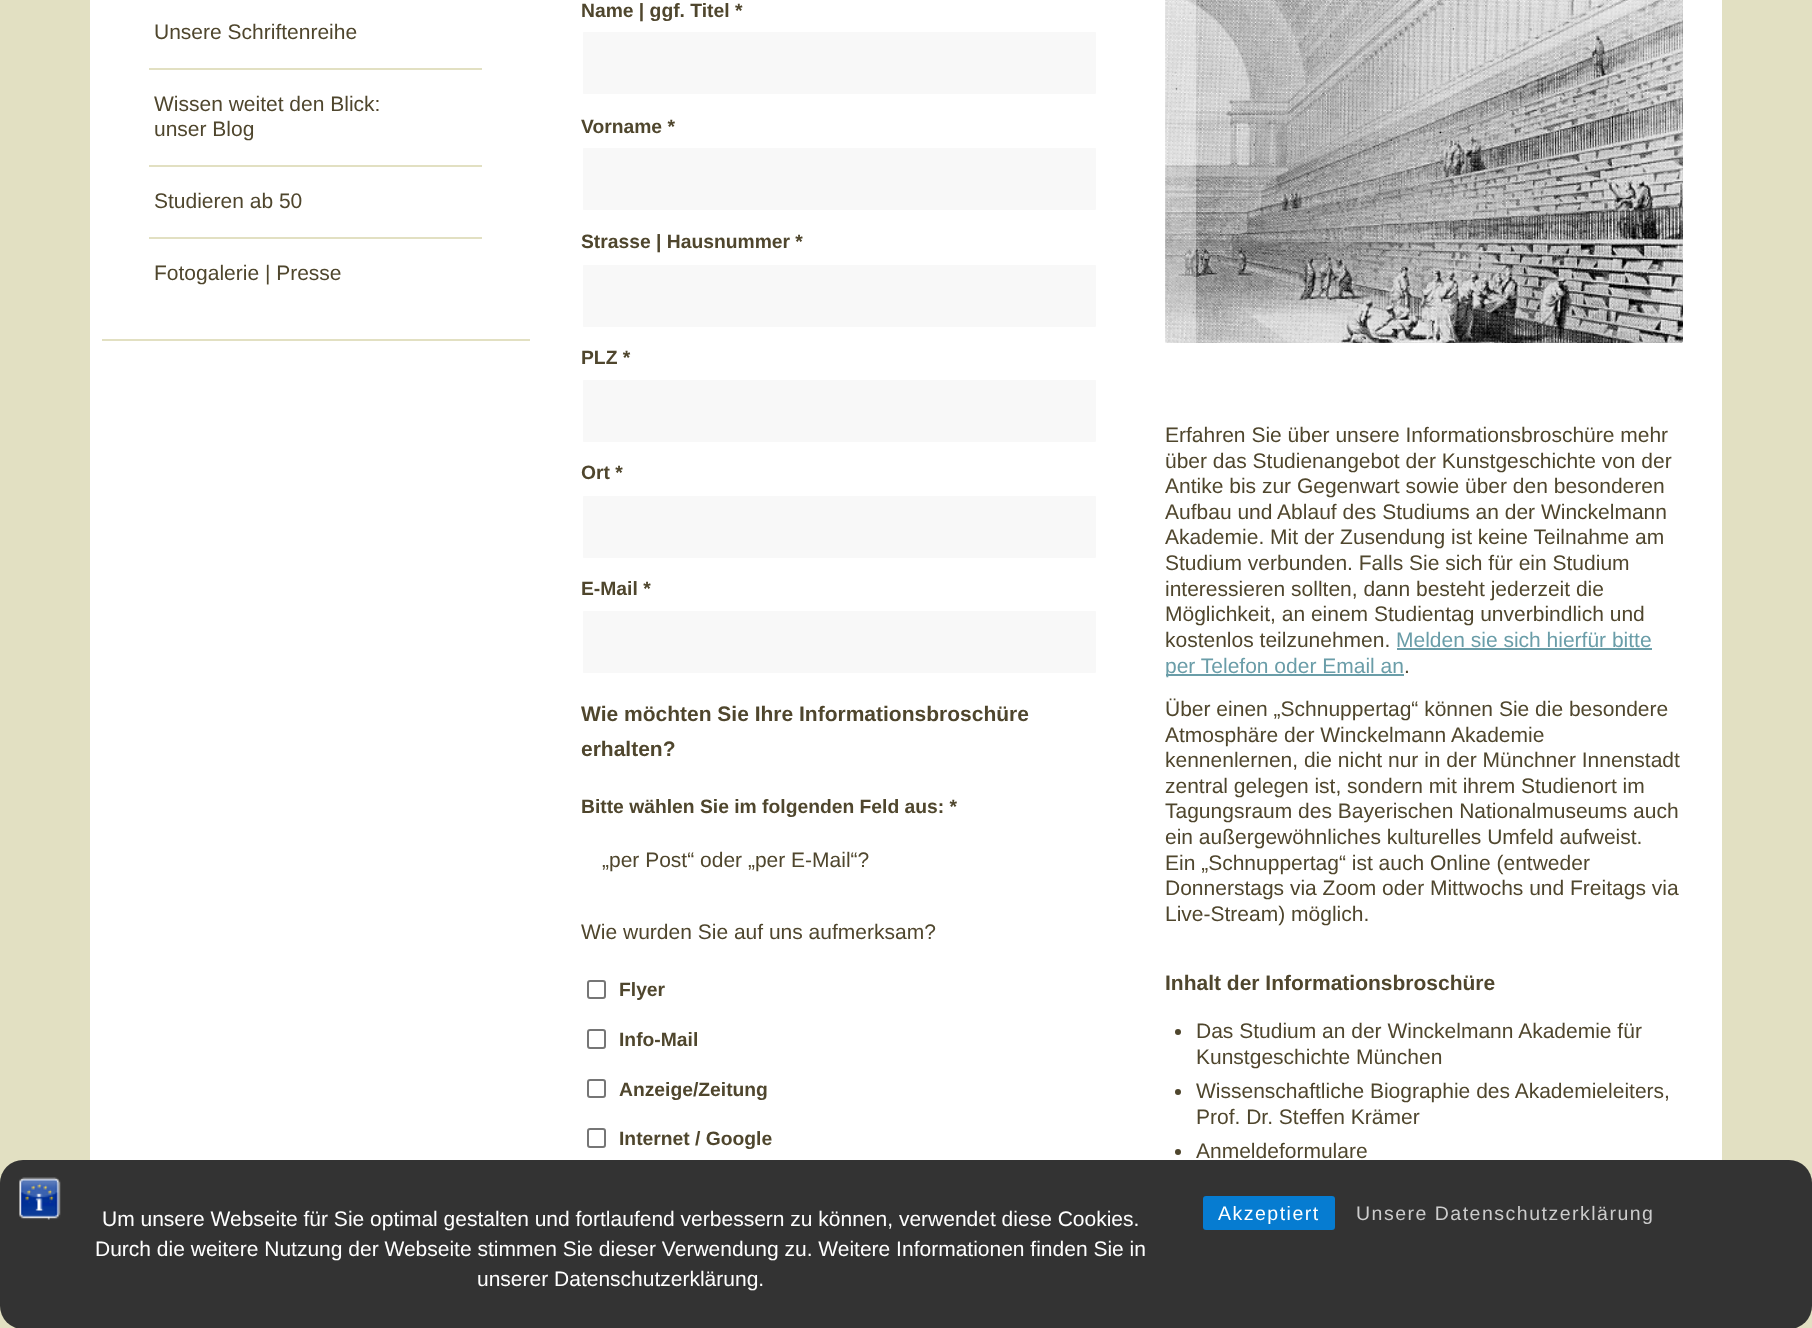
<svg xmlns="http://www.w3.org/2000/svg" width="1812" height="1328" viewBox="0 0 1812 1328">
  <rect width="100%" height="100%" fill="#e2e0c2"/>
  <path d="M90 0h1632v1160H90z" fill="#fff"/>
  <path d="M102 339h428v2H102z" fill="#e2e0c2"/>
  <path d="M149 68h333v2H149z" fill="#e2e0c2"/>
  <path d="M149 165h333v2H149z" fill="#e2e0c2"/>
  <path d="M149 237h333v2H149z" fill="#e2e0c2"/>
  <rect x="582" y="31" width="515" height="64" rx="2" fill="#f8f8f8" stroke="#fff" stroke-width="2"/>
  <rect x="582" y="147" width="515" height="64" rx="2" fill="#f8f8f8" stroke="#fff" stroke-width="2"/>
  <rect x="582" y="264" width="515" height="64" rx="2" fill="#f8f8f8" stroke="#fff" stroke-width="2"/>
  <rect x="582" y="379" width="515" height="64" rx="2" fill="#f8f8f8" stroke="#fff" stroke-width="2"/>
  <rect x="582" y="495" width="515" height="64" rx="2" fill="#f8f8f8" stroke="#fff" stroke-width="2"/>
  <rect x="582" y="610" width="515" height="64" rx="2" fill="#f8f8f8" stroke="#fff" stroke-width="2"/>
  <rect x="588" y="981" width="17" height="17" rx="2" fill="none" stroke="#767676" stroke-width="2"/>
  <rect x="588" y="1030" width="17" height="18" rx="2" fill="none" stroke="#767676" stroke-width="2"/>
  <rect x="588" y="1080" width="17" height="17" rx="2" fill="none" stroke="#767676" stroke-width="2"/>
  <rect x="588" y="1129" width="17" height="18" rx="2" fill="none" stroke="#767676" stroke-width="2"/>
  <image x="1165" y="0" width="518" height="343" href="img/1.png"/>
  <path d="M1166 0h30v343H1166z" fill="#ffffff66"/>
  <path d="M1397 648h255v2H1397z" fill="#6a9da8"/>
  <path d="M1166 674h238v2H1166z" fill="#6a9da8"/>
  <circle cx="1178" cy="1032" r="3" fill="#4f462d"/>
  <circle cx="1178" cy="1092" r="3" fill="#4f462d"/>
  <circle cx="1178" cy="1152" r="3" fill="#4f462d"/>
  <rect y="1160" width="1812" height="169" rx="23" fill="#333"/>
  <image x="19" y="1177" width="42" height="43" href="img/2.png"/>
  <rect x="1203" y="1196" width="132" height="34" rx="3" fill="#067cd1"/>
  <g font-family="Liberation Sans" font-size="21" fill="#4f462d">
    <text x="154" y="39">Unsere Schriftenreihe</text>
    <text x="154" y="111">Wissen weitet den Blick:</text>
    <text x="154" y="136">unser Blog</text>
    <text x="154" y="208">Studieren ab 50</text>
    <text x="154" y="280">Fotogalerie | Presse</text>
  </g>
  <g font-family="Liberation Sans" font-size="19.3" font-weight="bold" fill="#4f462d">
    <text x="581" y="17">Name | ggf. Titel *</text>
    <text x="581" y="133">Vorname *</text>
    <text x="581" y="248">Strasse | Hausnummer *</text>
    <text x="581" y="364">PLZ *</text>
    <text x="581" y="479">Ort *</text>
    <text x="581" y="595">E-Mail *</text>
  </g>
  <g font-family="Liberation Sans" font-size="21" font-weight="bold" fill="#4f462d">
    <text x="581" y="721">Wie möchten Sie Ihre Informationsbroschüre</text>
    <text x="581" y="756">erhalten?</text>
  </g>
  <text x="581" y="813" font-family="Liberation Sans" font-size="19.3" font-weight="bold" fill="#4f462d">Bitte wählen Sie im folgenden Feld aus: *</text>
  <g font-family="Liberation Sans" font-size="21" fill="#4f462d">
    <text x="602" y="867">„per Post“ oder „per E-Mail“?</text>
    <text x="581" y="939">Wie wurden Sie auf uns aufmerksam?</text>
  </g>
  <g font-family="Liberation Sans" font-size="19.3" font-weight="bold" fill="#4f462d">
    <text x="619" y="996">Flyer</text>
    <text x="619" y="1046">Info-Mail</text>
    <text x="619" y="1096">Anzeige/Zeitung</text>
    <text x="619" y="1145">Internet / Google</text>
  </g>
  <g font-family="Liberation Sans" font-size="21" fill="#4f462d">
    <text x="1165" y="442">Erfahren Sie über unsere Informationsbroschüre mehr</text>
    <text x="1165" y="468">über das Studienangebot der Kunstgeschichte von der</text>
    <text x="1165" y="493">Antike bis zur Gegenwart sowie über den besonderen</text>
    <text x="1165" y="519">Aufbau und Ablauf des Studiums an der Winckelmann</text>
    <text x="1165" y="544">Akademie. Mit der Zusendung ist keine Teilnahme am</text>
    <text x="1165" y="570">Studium verbunden. Falls Sie sich für ein Studium</text>
    <text x="1165" y="596">interessieren sollten, dann besteht jederzeit die</text>
    <text x="1165" y="621">Möglichkeit, an einem Studientag unverbindlich und</text>
    <text x="1165" y="647">kostenlos teilzunehmen.</text>
  </g>
  <g font-family="Liberation Sans" font-size="21" fill="#6a9da8">
    <text x="1396" y="647">Melden sie sich hierfür bitte</text>
    <text x="1165" y="673">per Telefon oder Email an</text>
  </g>
  <g font-family="Liberation Sans" font-size="21" fill="#4f462d">
    <text x="1404" y="673">.</text>
    <text x="1165" y="716">Über einen „Schnuppertag“ können Sie die besondere</text>
    <text x="1165" y="742">Atmosphäre der Winckelmann Akademie</text>
    <text x="1165" y="767">kennenlernen, die nicht nur in der Münchner Innenstadt</text>
    <text x="1165" y="793">zentral gelegen ist, sondern mit ihrem Studienort im</text>
    <text x="1165" y="818">Tagungsraum des Bayerischen Nationalmuseums auch</text>
    <text x="1165" y="844">ein außergewöhnliches kulturelles Umfeld aufweist.</text>
    <text x="1165" y="870">Ein „Schnuppertag“ ist auch Online (entweder</text>
    <text x="1165" y="895">Donnerstags via Zoom oder Mittwochs und Freitags via</text>
    <text x="1165" y="921">Live-Stream) möglich.</text>
  </g>
  <text x="1165" y="990" font-family="Liberation Sans" font-size="21" font-weight="bold" fill="#4f462d">Inhalt der Informationsbroschüre</text>
  <g font-family="Liberation Sans" font-size="21" fill="#4f462d">
    <text x="1196" y="1038">Das Studium an der Winckelmann Akademie für</text>
    <text x="1196" y="1064">Kunstgeschichte München</text>
    <text x="1196" y="1098">Wissenschaftliche Biographie des Akademieleiters,</text>
    <text x="1196" y="1124">Prof. Dr. Steffen Krämer</text>
    <text x="1196" y="1158">Anmeldeformulare</text>
  </g>
  <g font-family="Liberation Sans" font-size="21" fill="#fff">
    <text x="102" y="1226">Um unsere Webseite für Sie optimal gestalten und fortlaufend verbessern zu können, verwendet diese Cookies.</text>
    <text x="95" y="1256">Durch die weitere Nutzung der Webseite stimmen Sie dieser Verwendung zu. Weitere Informationen finden Sie in</text>
    <text x="477" y="1286">unserer Datenschutzerklärung.</text>
  </g>
  <text x="1218" y="1220" font-family="Liberation Sans" font-size="19.5" letter-spacing="1.5" fill="#fff">Akzeptiert</text>
  <text x="1356" y="1220" font-family="Liberation Sans" font-size="19.5" letter-spacing="1.5" fill="#ccc">Unsere Datenschutzerklärung</text>
</svg>
